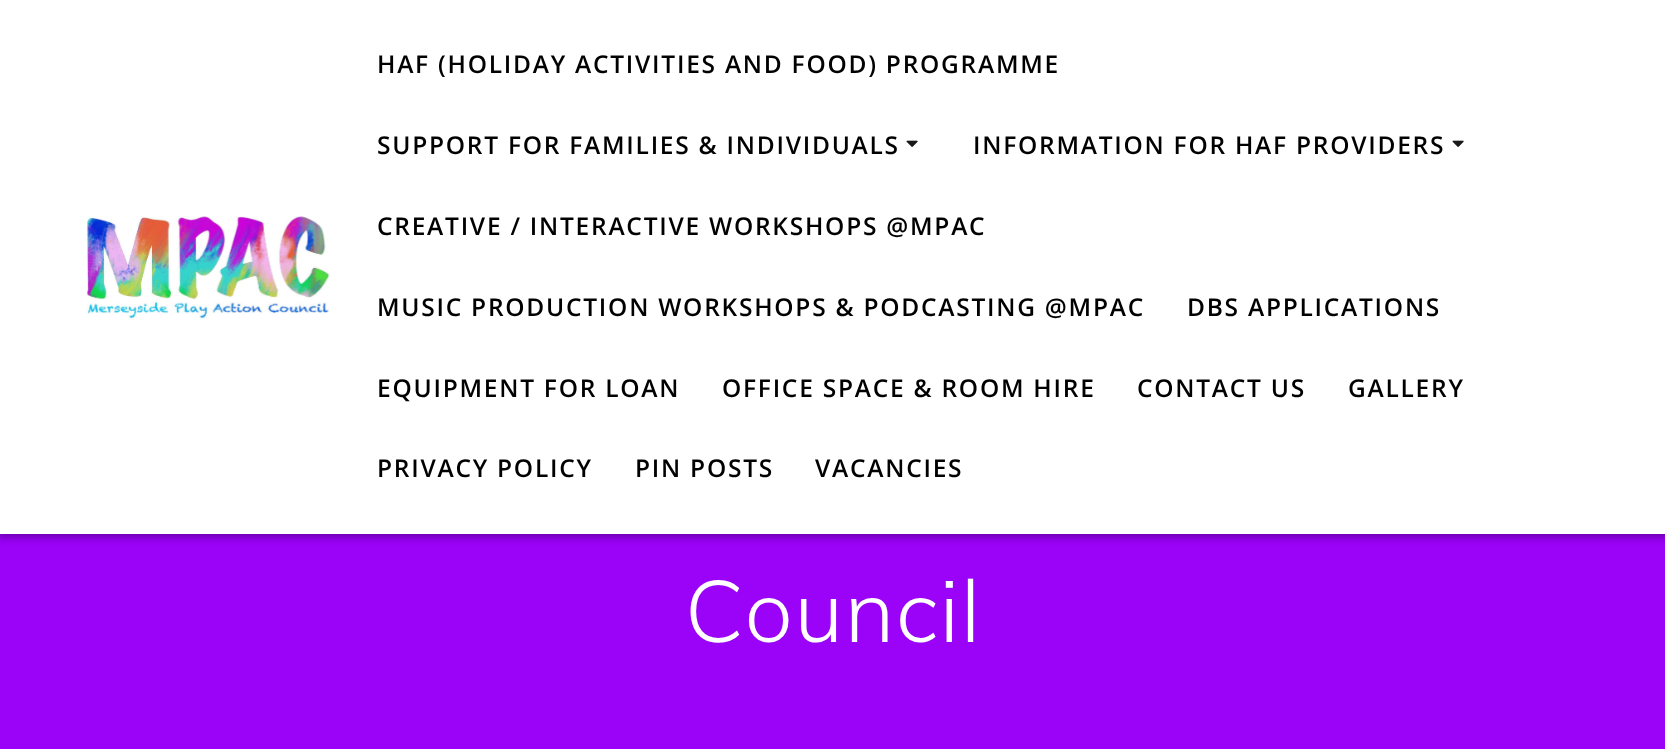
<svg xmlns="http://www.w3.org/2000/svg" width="1665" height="749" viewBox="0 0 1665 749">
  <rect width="100%" height="100%" fill="#9b02f8"/>
  <path d="M-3 -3h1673v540H-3z" fill="#00000054" filter="blur(4.5px)"/>
  <path d="M0 0h1665v534H0z" fill="#fff"/>
  <image x="86" y="216" width="244" height="104" href="img/1.png"/>
  <image x="906" y="140" width="12" height="7" href="img/2.png"/>
  <image x="1452" y="140" width="12" height="7" href="img/2.png"/>
  <g font-family="Open Sans" font-size="24.5" font-weight="600" letter-spacing="1.75" fill="#000">
    <text x="377" y="73">HAF (HOLIDAY ACTIVITIES AND FOOD) PROGRAMME</text>
    <text x="377" y="154">SUPPORT FOR FAMILIES &amp; INDIVIDUALS</text>
    <text x="973" y="154">INFORMATION FOR HAF PROVIDERS</text>
    <text x="377" y="235">CREATIVE / INTERACTIVE WORKSHOPS @MPAC</text>
    <text x="377" y="316">MUSIC PRODUCTION WORKSHOPS &amp; PODCASTING @MPAC</text>
    <text x="1187" y="316">DBS APPLICATIONS</text>
    <text x="377" y="397">EQUIPMENT FOR LOAN</text>
    <text x="722" y="397">OFFICE SPACE &amp; ROOM HIRE</text>
    <text x="1137" y="397">CONTACT US</text>
    <text x="1348" y="397">GALLERY</text>
    <text x="377" y="477">PRIVACY POLICY</text>
    <text x="635" y="477">PIN POSTS</text>
    <text x="815" y="477">VACANCIES</text>
  </g>
  <text x="685" y="642" font-family="Muli" font-size="86" font-weight="300" letter-spacing="1.5" fill="#fff">Council</text>
</svg>
